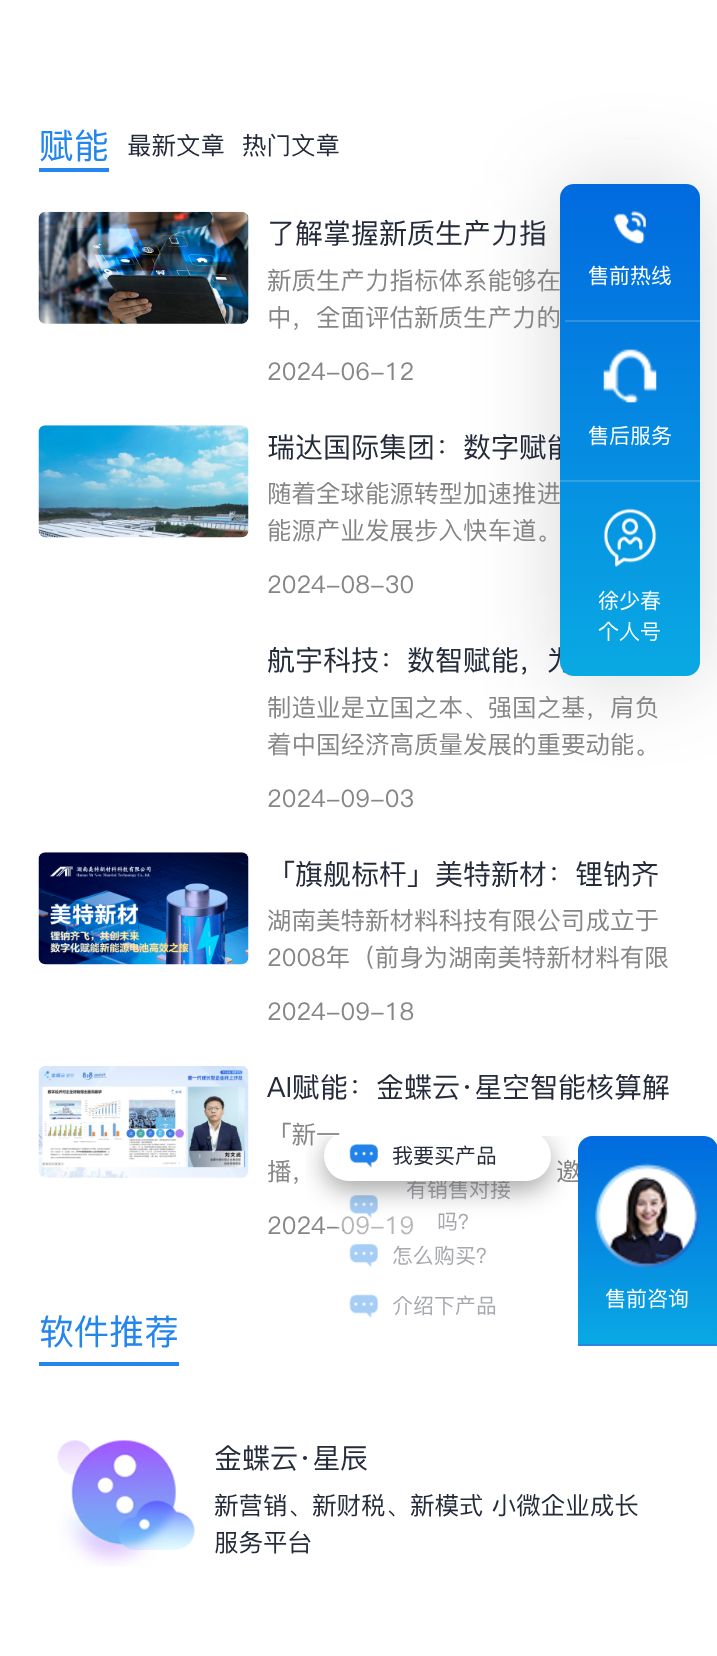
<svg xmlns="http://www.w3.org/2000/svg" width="717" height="1656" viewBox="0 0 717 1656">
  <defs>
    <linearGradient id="g1" gradientUnits="userSpaceOnUse" x1="630" y1="184" x2="630" y2="675"><stop offset="0" stop-color="#016adf"/><stop offset="1" stop-color="#09a9e3"/></linearGradient>
    <linearGradient id="g2" gradientUnits="userSpaceOnUse" x1="648" y1="1136" x2="648" y2="1344"><stop offset="0" stop-color="#016adf"/><stop offset="1" stop-color="#09a9e3"/></linearGradient>
    <clipPath id="clip1"><path d="M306 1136h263v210H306z"/></clipPath>
    <clipPath id="clip2"><path d="M306 1136h263v210H306z"/></clipPath>
  </defs>
  <rect width="100%" height="100%" fill="#fff"/>
  <path d="M39 168h70v4H39z" fill="#2587ee"/>
  <image x="38" y="211" width="211" height="113" href="img/1.png"/>
  <image x="38" y="425" width="211" height="113" href="img/2.png"/>
  <image x="38" y="852" width="211" height="113" href="img/3.png"/>
  <image x="38" y="1066" width="211" height="112" href="img/4.png"/>
  <path d="M39 1362h140v4H39z" fill="#2587ee"/>
  <image x="57" y="1440" width="138" height="127" href="img/5.png"/>
  <rect x="560" y="184" width="140" height="492" rx="14" fill="#32394333" filter="blur(44px)"/>
  <image x="349" y="1294" width="29" height="24" href="img/12.png"/>
  <path d="M578 1344h139v2H578z" fill="#2f83e0"/>
  <text x="39" y="158" font-family="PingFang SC" font-size="35" font-weight="500" fill="#2386ec">赋能</text>
  <g font-family="PingFang SC" font-size="24.5" font-weight="500" fill="#252b3a">
    <text x="127" y="154">最新文章</text>
    <text x="242" y="154">热门文章</text>
  </g>
  <text x="267" y="243" font-family="PingFang SC" font-size="28" font-weight="500" fill="#252b3a">了解掌握新质生产力指</text>
  <g font-family="PingFang SC" font-size="24.5" font-weight="500" fill="#868686">
    <text x="267" y="289">新质生产力指标体系能够在</text>
    <text x="267" y="326">中，全面评估新质生产力的</text>
    <text x="267" y="380">2024-06-12</text>
  </g>
  <text x="267" y="457" font-family="PingFang SC" font-size="28" font-weight="500" fill="#252b3a">瑞达国际集团：数字赋能</text>
  <g font-family="PingFang SC" font-size="24.5" font-weight="500" fill="#868686">
    <text x="267" y="502">随着全球能源转型加速推进</text>
    <text x="267" y="539">能源产业发展步入快车道。</text>
    <text x="267" y="593">2024-08-30</text>
  </g>
  <text x="267" y="670" font-family="PingFang SC" font-size="28" font-weight="500" fill="#252b3a">航宇科技：数智赋能，为</text>
  <g font-family="PingFang SC" font-size="24.5" font-weight="500" fill="#868686">
    <text x="267" y="716">制造业是立国之本、强国之基，肩负</text>
    <text x="267" y="753">着中国经济高质量发展的重要动能。</text>
    <text x="267" y="807">2024-09-03</text>
  </g>
  <text x="267" y="884" font-family="PingFang SC" font-size="28" font-weight="500" fill="#252b3a">「旗舰标杆」美特新材：锂钠齐</text>
  <g font-family="PingFang SC" font-size="24.5" font-weight="500" fill="#868686">
    <text x="267" y="929">湖南美特新材料科技有限公司成立于</text>
    <text x="267" y="966">2008年（前身为湖南美特新材料有限</text>
    <text x="267" y="1020">2024-09-18</text>
  </g>
  <text x="267" y="1097" font-family="PingFang SC" font-size="28" font-weight="500" fill="#252b3a">AI赋能：金蝶云·星空智能核算解</text>
  <g font-family="PingFang SC" font-size="24.5" font-weight="500" fill="#868686">
    <text x="267" y="1143">「新一</text>
    <text x="267" y="1180">播，</text>
    <text x="556" y="1180">邀</text>
    <text x="267" y="1234">2024-09-19</text>
  </g>
  <text x="39" y="1344" font-family="PingFang SC" font-size="35" font-weight="500" fill="#2386ec">软件推荐</text>
  <text x="214" y="1468" font-family="PingFang SC" font-size="28" font-weight="500" fill="#252b3a">金蝶云·星辰</text>
  <g font-family="PingFang SC" font-size="24.5" font-weight="500" fill="#252b3a">
    <text x="214" y="1514">新营销、新财税、新模式 小微企业成长</text>
    <text x="214" y="1551">服务平台</text>
  </g>
  <rect x="560" y="184" width="140" height="492" rx="14" fill="url(#g1)"/>
  <path d="M565 320h135v2H565z" fill="#3091e1"/>
  <image x="614" y="211" width="32" height="33" href="img/6.png"/>
  <text x="588" y="283" font-family="PingFang SC" font-size="21" font-weight="500" fill="#fff">售前热线</text>
  <path d="M560 480h140v2H560z" fill="#33a1e2"/>
  <image x="603" y="349" width="54" height="54" href="img/7.png"/>
  <text x="588" y="443" font-family="PingFang SC" font-size="21" font-weight="500" fill="#fff">售后服务</text>
  <image x="603" y="508" width="54" height="60" href="img/8.png"/>
  <g font-family="PingFang SC" font-size="21" font-weight="500" fill="#fff">
    <text x="598" y="608">徐少春</text>
    <text x="598" y="639">个人号</text>
  </g>
  <rect x="324" y="1181" width="227" height="49" rx="24.5" fill="#ffffff66"/>
  <image x="349" y="1195" width="29" height="23" href="img/10.png"/>
  <g font-family="PingFang SC" font-size="21" font-weight="500" fill="#a7a9af">
    <text x="406" y="1197">有销售对接</text>
    <text x="437" y="1229">吗？</text>
  </g>
  <rect x="324" y="1230" width="227" height="51" rx="25.5" fill="#ffffff66"/>
  <image x="349" y="1244" width="29" height="23" href="img/11.png"/>
  <g font-family="PingFang SC" font-size="21" font-weight="500" fill="#a7a9af">
    <text x="392" y="1263">怎么购买？</text>
    <text x="392" y="1313">介绍下产品</text>
  </g>
  <path d="M592 1136H704C711.5 1136 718 1142.5 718 1150V1344H578V1150C578 1142.5 584.5 1136 592 1136Z" fill="url(#g2)"/>
  <g clip-path="url(#clip1)">
    <rect x="324" y="1139" width="227" height="51" rx="25.5" fill="#00000059" filter="blur(13px)"/>
  </g>
  <g clip-path="url(#clip2)">
    <rect x="324" y="1131" width="227" height="50" rx="25" fill="#fff"/>
  </g>
  <text x="392" y="1163" font-family="PingFang SC" font-size="21" font-weight="500" fill="#252b3a">我要买产品</text>
  <image x="349" y="1144" width="29" height="24" href="img/9.png"/>
  <image x="595" y="1163" width="105" height="104" href="img/13.png"/>
  <text x="605" y="1306" font-family="PingFang SC" font-size="21" font-weight="500" fill="#fff">售前咨询</text>
</svg>
